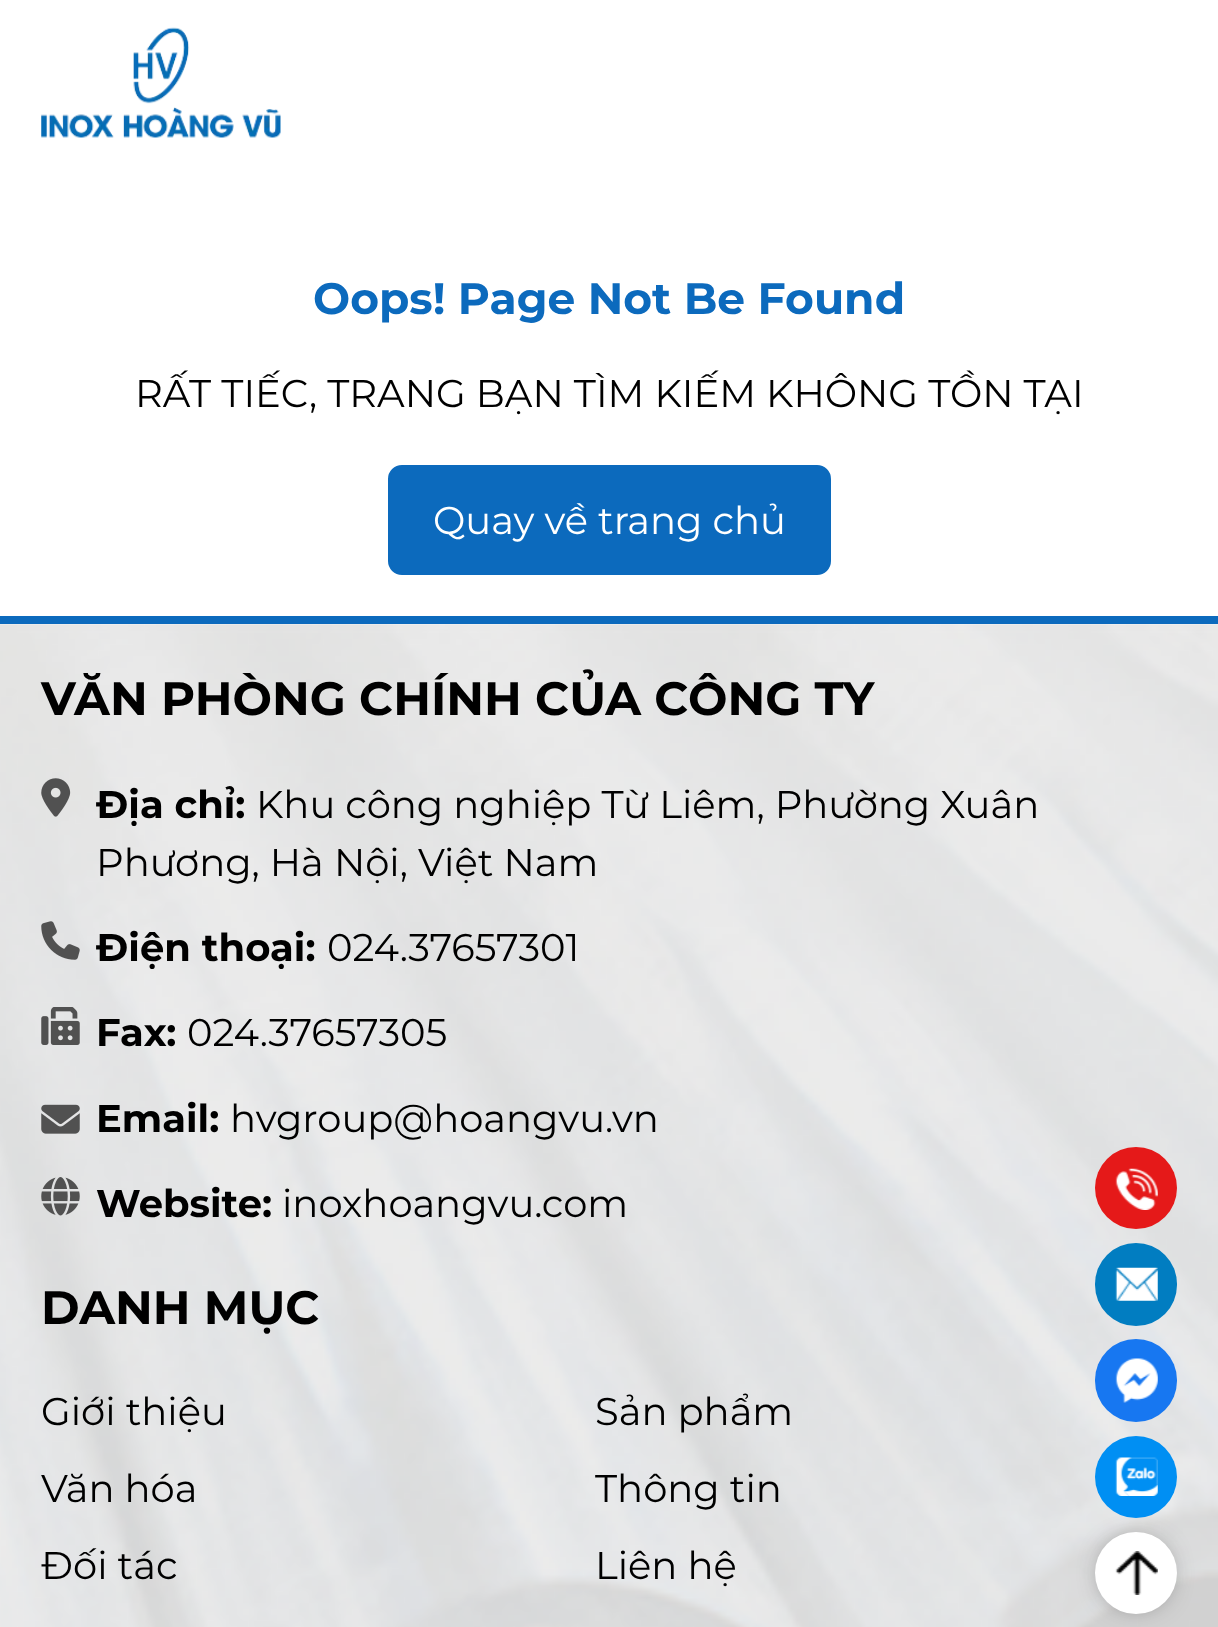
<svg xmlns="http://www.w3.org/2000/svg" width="1218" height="1627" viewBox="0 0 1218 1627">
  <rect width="100%" height="100%" fill="#fff"/>
  <image x="41" y="27" width="240" height="111" href="img/1.png"/>
  <rect x="389.5" y="466.5" width="440" height="107" rx="12.5" fill="#0c6abd" stroke="#0c6abd" stroke-width="3"/>
  <image x="0" y="624" width="1218" height="1003" href="img/2.png"/>
  <path d="M0 616h1218v8H0z" fill="#0c6abd"/>
  <image x="41" y="778" width="30" height="39" href="img/3.png"/>
  <image x="41" y="921" width="39" height="39" href="img/4.png"/>
  <image x="41" y="1007" width="39" height="38" href="img/5.png"/>
  <image x="41" y="1104" width="39" height="30" href="img/6.png"/>
  <image x="41" y="1177" width="39" height="39" href="img/7.png"/>
  <circle cx="1136" cy="1188" r="41" fill="#e51919"/>
  <image x="1115" y="1168" width="43" height="42" href="img/8.png"/>
  <rect x="1095" y="1243" width="82" height="83" rx="41" fill="#017dc1"/>
  <image x="1115" y="1267" width="43" height="34" href="img/9.png"/>
  <rect x="1095" y="1339" width="82" height="83" rx="41" fill="#1777f1"/>
  <image x="1115" y="1358" width="43" height="45" href="img/10.png"/>
  <rect x="1108" y="1546" width="55" height="55" rx="27.5" fill="#333" filter="blur(14px)"/>
  <circle cx="1136" cy="1477" r="41" fill="#008ff3"/>
  <image x="1115" y="1457" width="43" height="39" href="img/11.png"/>
  <circle cx="1136" cy="1573" r="41" fill="#fff"/>
  <image x="1115" y="1551" width="43" height="44" href="img/12.png"/>
  <text x="313" y="314" font-family="Montserrat" font-size="44" font-weight="bold" fill="#0c6abd">Oops! Page Not Be Found</text>
  <text x="135" y="407" font-family="Montserrat" font-size="38.5" fill="#000">RẤT TIẾC, TRANG BẠN TÌM KIẾM KHÔNG TỒN TẠI</text>
  <text x="433" y="534" font-family="Montserrat" font-size="38.5" fill="#fff">Quay về trang chủ</text>
  <text x="41" y="715" font-family="Montserrat" font-size="46.75" font-weight="bold" fill="#000">VĂN PHÒNG CHÍNH CỦA CÔNG TY</text>
  <text x="96" y="818" font-family="Montserrat" font-size="38.5" font-weight="bold" fill="#000">Địa chỉ:</text>
  <g font-family="Montserrat" font-size="38.5" fill="#000">
    <text x="256" y="818">Khu công nghiệp Từ Liêm, Phường Xuân</text>
    <text x="96" y="876">Phương, Hà Nội, Việt Nam</text>
  </g>
  <text x="96" y="961" font-family="Montserrat" font-size="38.5" font-weight="bold" fill="#000">Điện thoại:</text>
  <text x="327" y="961" font-family="Montserrat" font-size="38.5" fill="#000">024.37657301</text>
  <text x="96" y="1046" font-family="Montserrat" font-size="38.5" font-weight="bold" fill="#000">Fax:</text>
  <text x="187" y="1046" font-family="Montserrat" font-size="38.5" fill="#000">024.37657305</text>
  <text x="96" y="1132" font-family="Montserrat" font-size="38.5" font-weight="bold" fill="#000">Email:</text>
  <text x="230" y="1132" font-family="Montserrat" font-size="38.5" fill="#000">hvgroup@hoangvu.vn</text>
  <text x="96" y="1217" font-family="Montserrat" font-size="38.5" font-weight="bold" fill="#000">Website:</text>
  <text x="282" y="1217" font-family="Montserrat" font-size="38.5" fill="#000">inoxhoangvu.com</text>
  <text x="41" y="1324" font-family="Montserrat" font-size="46.75" font-weight="bold" fill="#000">DANH MỤC</text>
  <g font-family="Montserrat" font-size="38.5" fill="#000">
    <text x="41" y="1425">Giới thiệu</text>
    <text x="595" y="1425">Sản phẩm</text>
    <text x="41" y="1502">Văn hóa</text>
    <text x="595" y="1502">Thông tin</text>
    <text x="41" y="1579">Đối tác</text>
    <text x="595" y="1579">Liên hệ</text>
  </g>
</svg>
